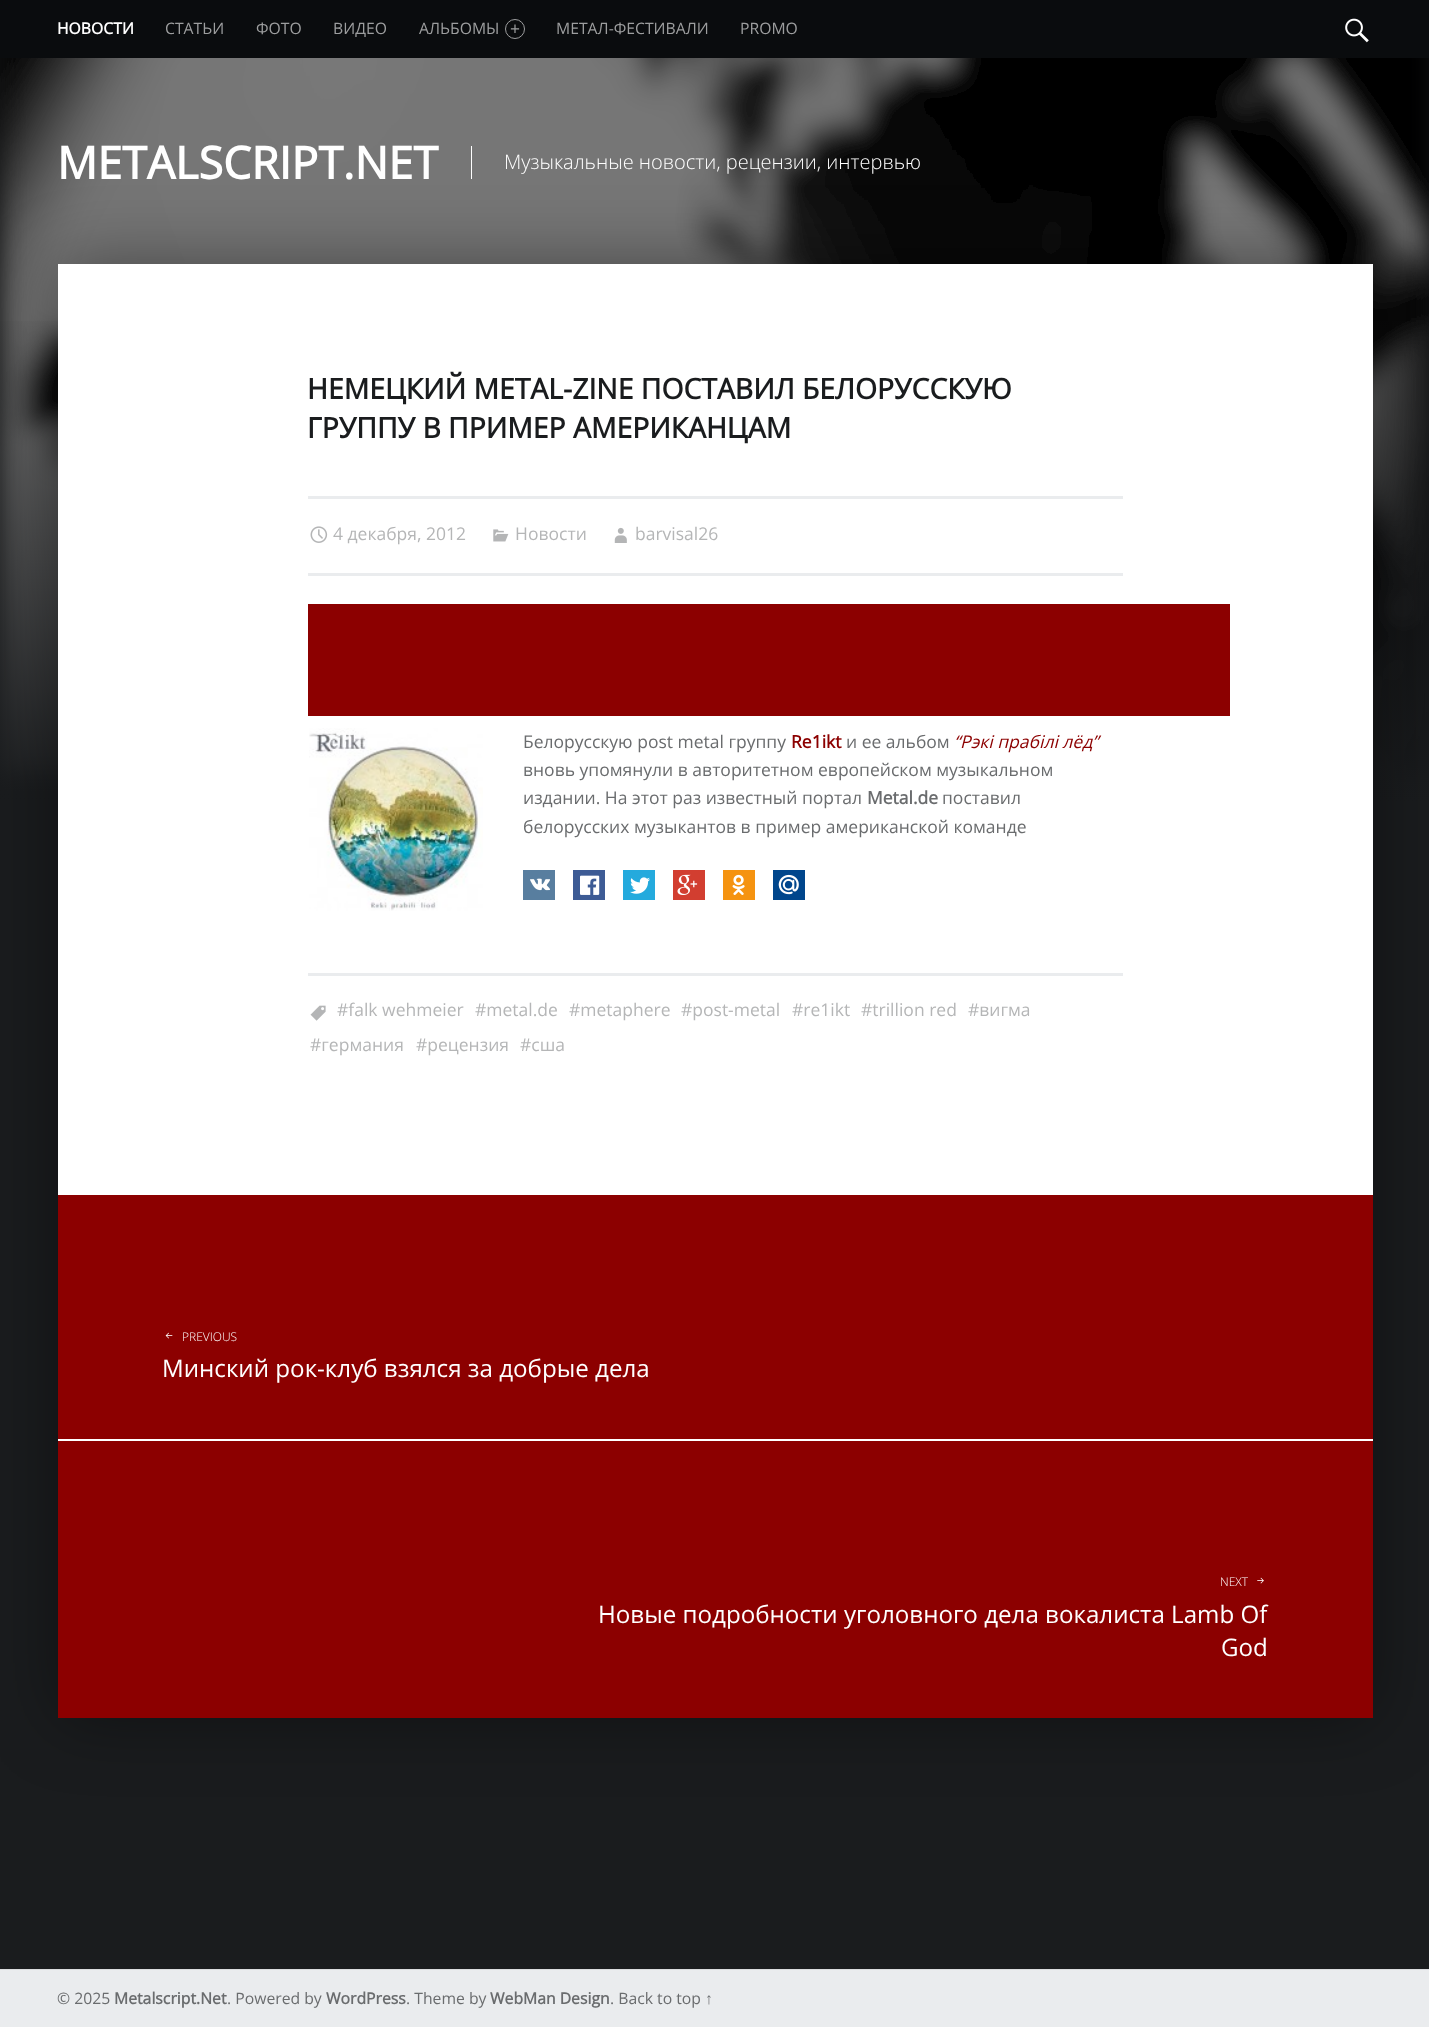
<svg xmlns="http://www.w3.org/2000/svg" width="1429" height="2027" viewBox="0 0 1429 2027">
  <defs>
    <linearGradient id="g1" gradientUnits="userSpaceOnUse" x1="715" y1="306" x2="715" y2="805"><stop offset="0" stop-color="#1a1c1e" stop-opacity="0"/><stop offset="1" stop-color="#1a1c1e"/></linearGradient>
  </defs>
  <rect width="100%" height="100%" fill="#1a1c1e"/>
  <path d="M0 58h1429v744H0z" fill="#101112"/>
  <path d="M0 0h1429v58H0z" fill="#0a0c0e"/>
  <circle cx="515" cy="29" r="9.5" fill="none" stroke="#9d9e9f"/>
  <image x="1345" y="18" width="24" height="25" href="img/1.png"/>
  <image x="0" y="58" width="1429" height="744" href="img/2.png"/>
  <path d="M0 321h1429v481H0z" fill="url(#g1)"/>
  <path d="M471 146h1v33H471z" fill="#fff"/>
  <path d="M58 264h1315v1454H58z" fill="#00000066" filter="blur(35px)"/>
  <path d="M58 264h1315v1177H58z" fill="#fff"/>
  <path d="M308 496h815v3H308z" fill="#eaecee"/>
  <path d="M308 573h815v3H308z" fill="#eaecee"/>
  <image x="310" y="526" width="18" height="17" href="img/3.png"/>
  <image x="493" y="529" width="16" height="13" href="img/4.png"/>
  <image x="614" y="527" width="13" height="16" href="img/5.png"/>
  <path d="M308 604h6v112H308z" fill="#8c0000"/>
  <path d="M314 604h916v112H314z" fill="#8c0000"/>
  <image x="309" y="728" width="174" height="183" href="img/6.png"/>
  <path d="M523 870h32v30H523z" fill="#587e9f"/>
  <image x="530" y="878" width="20" height="13" href="img/7.png"/>
  <path d="M573 870h32v30H573z" fill="#3d5b95"/>
  <image x="580" y="875" width="20" height="20" href="img/8.png"/>
  <path d="M623 870h32v30H623z" fill="#24aadd"/>
  <image x="630" y="877" width="20" height="17" href="img/9.png"/>
  <path d="M673 870h32v30H673z" fill="#d23e30"/>
  <image x="677" y="874" width="21" height="21" href="img/10.png"/>
  <path d="M723 870h32v30H723z" fill="#f59310"/>
  <image x="732" y="874" width="13" height="21" href="img/11.png"/>
  <path d="M773 870h32v30H773z" fill="#00468c"/>
  <image x="778" y="874" width="21" height="21" href="img/12.png"/>
  <path d="M308 973h815v3H308z" fill="#eaecee"/>
  <image x="310" y="1005" width="16" height="16" href="img/13.png"/>
  <path d="M58 1195h1315v244H58z" fill="#8c0000"/>
  <image x="165" y="1332" width="8" height="7" href="img/14.png"/>
  <path d="M58 1441h1315v277H58z" fill="#8c0000"/>
  <image x="1257" y="1577" width="7" height="7" href="img/15.png"/>
  <path d="M0 1970h1429v57H0z" fill="#eaecee"/>
  <path d="M0 1969h1429v1H0z" fill="#dadcde"/>
  <text x="57" y="34" font-family="Open Sans" font-size="15.75" font-weight="bold" fill="#fff">НОВОСТИ</text>
  <g font-family="Open Sans" font-size="15.75" fill="#9d9e9f">
    <text x="165" y="34">СТАТЬИ</text>
    <text x="256" y="34">ФОТО</text>
    <text x="333" y="34">ВИДЕО</text>
    <text x="419" y="34">АЛЬБОМЫ</text>
  </g>
  <text x="510" y="35" font-family="Open Sans" font-size="17.5" fill="#9d9e9f">+</text>
  <g font-family="Open Sans" font-size="15.75" fill="#9d9e9f">
    <text x="556" y="34">МЕТАЛ-ФЕСТИВАЛИ</text>
    <text x="740" y="34">PROMO</text>
  </g>
  <text x="57" y="179" font-family="Open Sans" font-size="44.75" font-weight="bold" fill="#fff">METALSCRIPT.NET</text>
  <text x="504" y="169" font-family="Open Sans" font-size="20" font-weight="300" fill="#fff">Музыкальные новости, рецензии, интервью</text>
  <g font-family="Open Sans" font-size="28.35" font-weight="bold" fill="#1a1c1e">
    <text x="307" y="399">НЕМЕЦКИЙ METAL-ZINE ПОСТАВИЛ БЕЛОРУССКУЮ</text>
    <text x="307" y="438">ГРУППУ В ПРИМЕР АМЕРИКАНЦАМ</text>
  </g>
  <g font-family="Open Sans" font-size="17.5" fill="#b5b6b7">
    <text x="333" y="540">4 декабря, 2012</text>
    <text x="515" y="540">Новости</text>
    <text x="635" y="540">barvisal26</text>
  </g>
  <text x="523" y="748" font-family="Open Sans" font-size="17.5" fill="#6a6c6e">Белорусскую post metal группу</text>
  <text x="791" y="748" font-family="Open Sans" font-size="17.5" font-weight="bold" fill="#8c0000">Re1ikt</text>
  <text x="846" y="748" font-family="Open Sans" font-size="17.5" fill="#6a6c6e">и ее альбом</text>
  <text x="954" y="748" font-family="Open Sans" font-size="17.5" font-style="italic" fill="#8c0000">“Рэкі прабілі лёд”</text>
  <g font-family="Open Sans" font-size="17.5" fill="#6a6c6e">
    <text x="523" y="776">вновь упомянули в авторитетном европейском музыкальном</text>
    <text x="523" y="804">издании. На этот раз известный портал</text>
  </g>
  <text x="867" y="804" font-family="Open Sans" font-size="17.5" font-weight="bold" fill="#6a6c6e">Metal.de</text>
  <g font-family="Open Sans" font-size="17.5" fill="#6a6c6e">
    <text x="942" y="804">поставил</text>
    <text x="523" y="833">белорусских музыкантов в пример американской команде</text>
  </g>
  <g font-family="Open Sans" font-size="17.5" fill="#b5b6b7">
    <text x="337" y="1016">#falk wehmeier</text>
    <text x="475" y="1016">#metal.de</text>
    <text x="569" y="1016">#metaphere</text>
    <text x="681" y="1016">#post-metal</text>
    <text x="792" y="1016">#re1ikt</text>
    <text x="861" y="1016">#trillion red</text>
    <text x="968" y="1016">#вигма</text>
    <text x="310" y="1051">#германия</text>
    <text x="416" y="1051">#рецензия</text>
    <text x="520" y="1051">#сша</text>
  </g>
  <text x="182" y="1341" font-family="Open Sans" font-size="12" font-weight="300" fill="#fff">PREVIOUS</text>
  <text x="162" y="1377" font-family="Open Sans" font-size="24.15" fill="#fff">Минский рок-клуб взялся за добрые дела</text>
  <text x="1220" y="1586" font-family="Open Sans" font-size="12" font-weight="300" fill="#fff">NEXT</text>
  <g font-family="Open Sans" font-size="24.15" fill="#fff">
    <text x="598" y="1623">Новые подробности уголовного дела вокалиста Lamb Of</text>
    <text x="1221" y="1656">God</text>
  </g>
  <text x="57" y="2004" font-family="Open Sans" font-size="15.75" fill="#6a6c6e">© 2025</text>
  <text x="114" y="2004" font-family="Open Sans" font-size="15.75" font-weight="bold" fill="#6a6c6e">Metalscript.Net</text>
  <text x="227" y="2004" font-family="Open Sans" font-size="15.75" fill="#6a6c6e">. Powered by</text>
  <text x="326" y="2004" font-family="Open Sans" font-size="15.75" font-weight="bold" fill="#6a6c6e">WordPress</text>
  <text x="406" y="2004" font-family="Open Sans" font-size="15.75" fill="#6a6c6e">. Theme by</text>
  <text x="490" y="2004" font-family="Open Sans" font-size="15.75" font-weight="bold" fill="#6a6c6e">WebMan Design</text>
  <text x="610" y="2004" font-family="Open Sans" font-size="15.75" fill="#6a6c6e">. Back to top</text>
  <text x="705" y="2004" font-family="Liberation Sans" font-size="15.75" fill="#6a6c6e">↑</text>
</svg>
